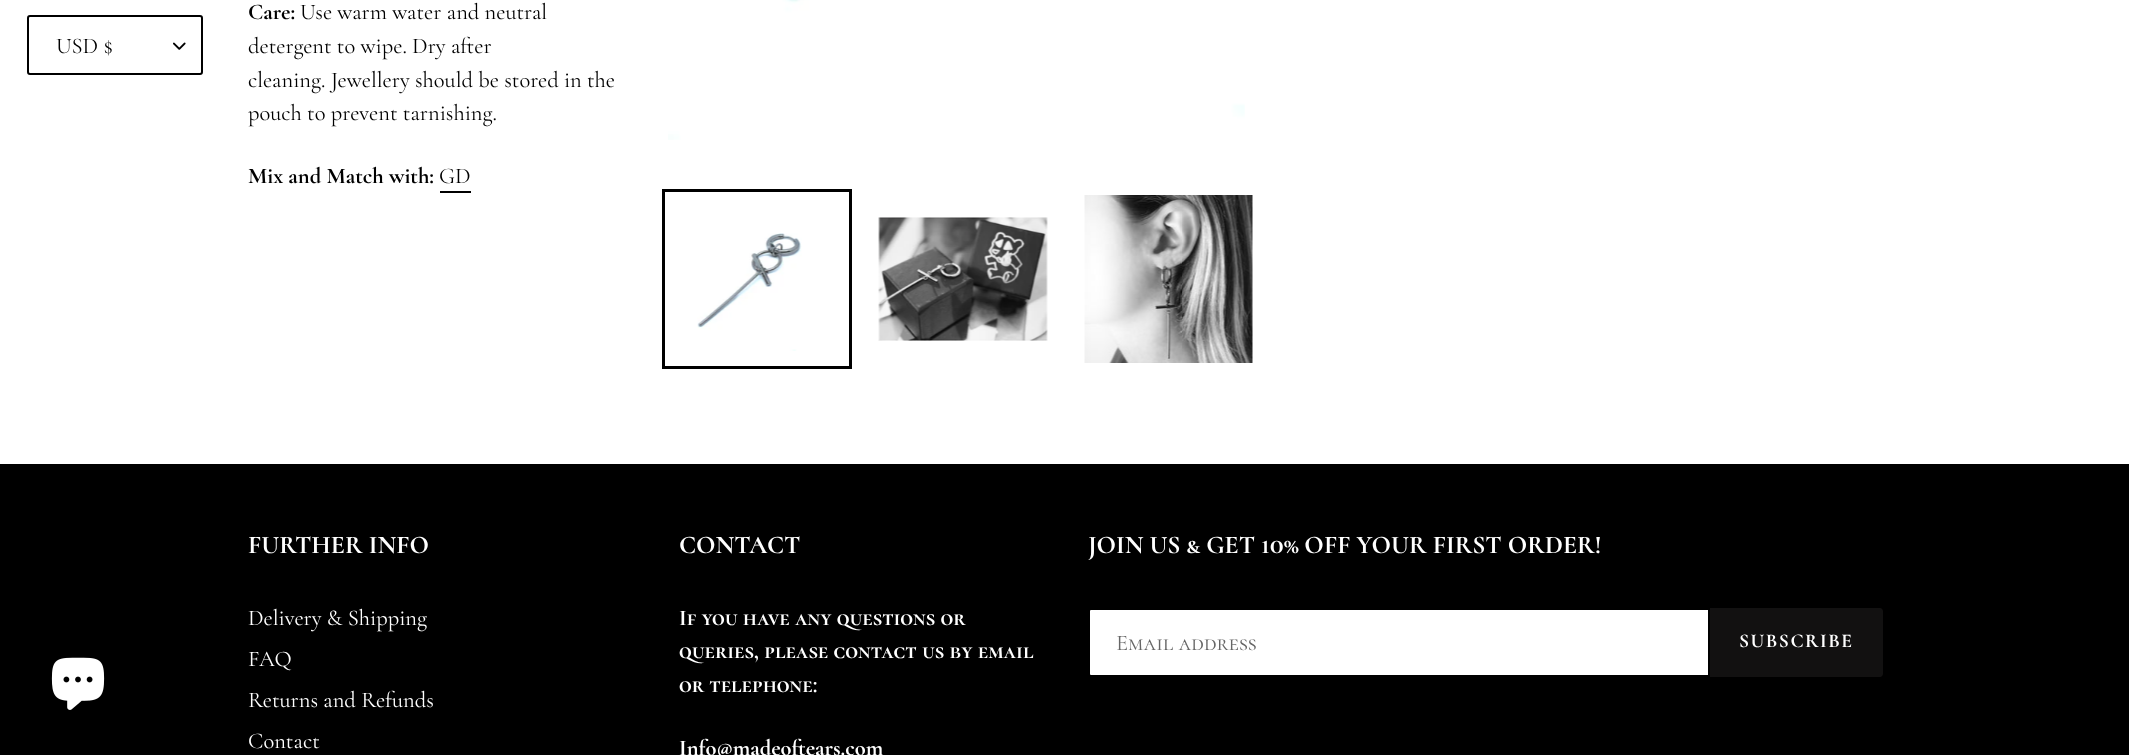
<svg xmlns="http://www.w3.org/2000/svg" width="2129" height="755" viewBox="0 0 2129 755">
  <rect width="100%" height="100%" fill="#fff"/>
  <image x="173" y="42" width="13" height="8" href="img/1.png"/>
  <rect x="28" y="16" width="174" height="58" rx="2" fill="none" stroke="#000" stroke-width="2"/>
  <path d="M440 191h31v2H440z" fill="#000"/>
  <image x="668" y="0" width="577" height="140" href="img/2.png"/>
  <path d="M663.5 190.5h187v177H663.5z" fill="none" stroke="#000" stroke-width="3"/>
  <image x="697" y="233" width="105" height="118" href="img/3.png"/>
  <image x="878" y="217" width="170" height="124" href="img/4.png"/>
  <image x="1084" y="195" width="169" height="168" href="img/5.png"/>
  <path d="M0 464h2129v291H0z" fill="#000"/>
  <path d="M1091 609H1709V676H1091C1090 676 1089 675 1089 674V611C1089 610 1090 609 1091 609Z" fill="#fff" stroke="#000" stroke-width="2"/>
  <path d="M1710 608H1880C1881.5 608 1883 609.5 1883 611V674C1883 675.5 1881.5 677 1880 677H1710Z" fill="#121111"/>
  <image x="51" y="657" width="54" height="53" href="img/6.png"/>
  <text x="56" y="53" font-family="Cormorant SC" font-size="22.5" fill="#000">USD $</text>
  <text x="248" y="19" font-family="Cormorant Garamond" font-size="22.5" font-weight="bold" fill="#000">Care:</text>
  <g font-family="Cormorant Garamond" font-size="22.5" fill="#000">
    <text x="300" y="19">Use warm water and neutral</text>
    <text x="248" y="53">detergent to wipe. Dry after</text>
    <text x="248" y="87">cleaning. Jewellery should be stored in the</text>
    <text x="248" y="120">pouch to prevent tarnishing.</text>
  </g>
  <text x="248" y="183" font-family="Cormorant Garamond" font-size="22.5" font-weight="bold" fill="#000">Mix and Match with:</text>
  <text x="439" y="183" font-family="Cormorant Garamond" font-size="22.5" fill="#000">GD</text>
  <text x="248" y="553" font-family="Cormorant SC" font-size="25.5" font-weight="bold" fill="#fff">FURTHER INFO</text>
  <g font-family="Cormorant Garamond" font-size="22.5" fill="#fff">
    <text x="248" y="625">Delivery &amp; Shipping</text>
    <text x="248" y="666">FAQ</text>
    <text x="248" y="707">Returns and Refunds</text>
    <text x="248" y="748">Contact</text>
  </g>
  <text x="679" y="553" font-family="Cormorant SC" font-size="25.5" font-weight="bold" fill="#fff">CONTACT</text>
  <g font-family="Cormorant SC" font-size="22.5" font-weight="bold" fill="#fff">
    <text x="679" y="625">If you have any questions or</text>
    <text x="679" y="658">queries, please contact us by email</text>
    <text x="679" y="692">or telephone:</text>
  </g>
  <text x="679" y="755" font-family="Cormorant Garamond" font-size="22.5" font-weight="bold" fill="#fff">Info@madeoftears.com</text>
  <text x="1088" y="553" font-family="Cormorant SC" font-size="25.5" font-weight="bold" fill="#fff">JOIN US &amp; GET 10% OFF YOUR FIRST ORDER!</text>
  <text x="1116" y="650" font-family="Cormorant SC" font-size="22.5" fill="#666">Email address</text>
  <text x="1739" y="647" font-family="Cormorant SC" font-size="19.5" font-weight="bold" letter-spacing="1.5" fill="#fff">SUBSCRIBE</text>
</svg>
